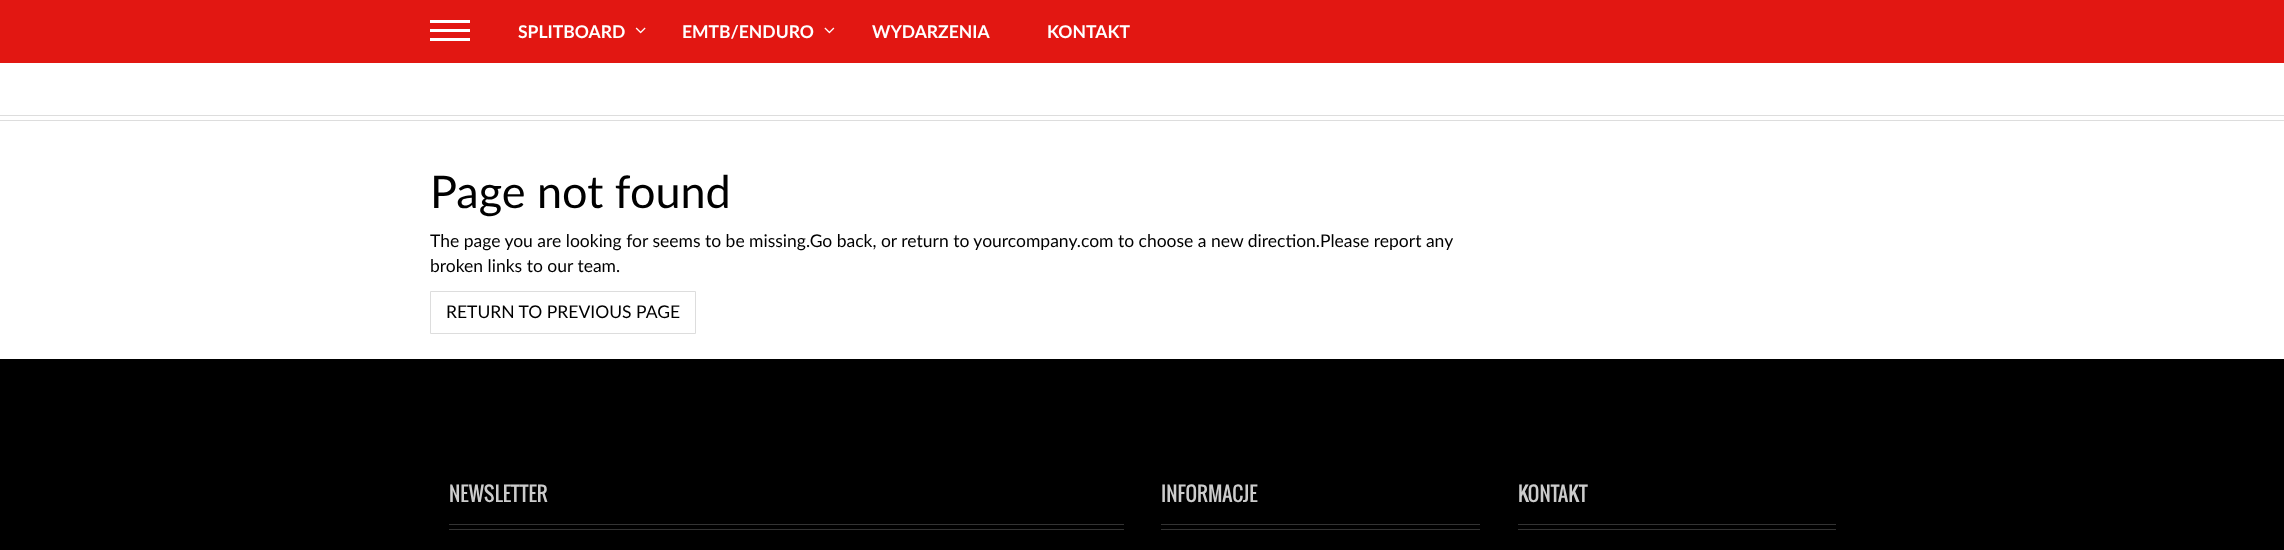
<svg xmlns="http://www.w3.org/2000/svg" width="2284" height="550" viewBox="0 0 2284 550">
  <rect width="100%" height="100%" fill="#fff"/>
  <path d="M0 0h2284v63H0z" fill="#e21712"/>
  <path d="M430 20h40v3H430z" fill="#fff"/>
  <path d="M430 29h40v3H430z" fill="#fff"/>
  <path d="M430 38h40v3H430z" fill="#fff"/>
  <image x="635" y="27" width="11" height="7" href="img/1.png"/>
  <image x="824" y="27" width="11" height="7" href="img/2.png"/>
  <path d="M0 115h2284v1H0z" fill="#ddd"/>
  <path d="M0 120h2284v1H0z" fill="#ddd"/>
  <path d="M430.5 291.5h265v42H430.5z" fill="none" stroke="#ddd"/>
  <path d="M0 359h2284v191H0z" fill="#000"/>
  <path d="M449 524h675v1H449z" fill="#333"/>
  <path d="M449 529h675v1H449z" fill="#333"/>
  <path d="M1161 524h319v1H1161z" fill="#333"/>
  <path d="M1161 529h319v1H1161z" fill="#333"/>
  <path d="M1518 524h318v1H1518z" fill="#333"/>
  <path d="M1518 529h318v1H1518z" fill="#333"/>
  <g font-family="Lato" font-size="17.5" font-weight="bold" fill="#fff">
    <text x="518" y="38">SPLITBOARD</text>
    <text x="682" y="38">EMTB/ENDURO</text>
    <text x="872" y="38">WYDARZENIA</text>
    <text x="1047" y="38">KONTAKT</text>
  </g>
  <text x="430" y="208" font-family="Lato" font-size="45" fill="#000">Page not found</text>
  <g font-family="Lato" font-size="17.5" fill="#000">
    <text x="430" y="247">The page you are looking for seems to be missing.Go back, or return to yourcompany.com to choose a new direction.Please report any</text>
    <text x="430" y="272">broken links to our team.</text>
    <text x="446" y="318">RETURN TO PREVIOUS PAGE</text>
  </g>
  <g font-family="Oswald" font-size="20" fill="#ccc">
    <text x="449" y="502">NEWSLETTER</text>
    <text x="1161" y="502">INFORMACJE</text>
    <text x="1518" y="502">KONTAKT</text>
  </g>
</svg>
